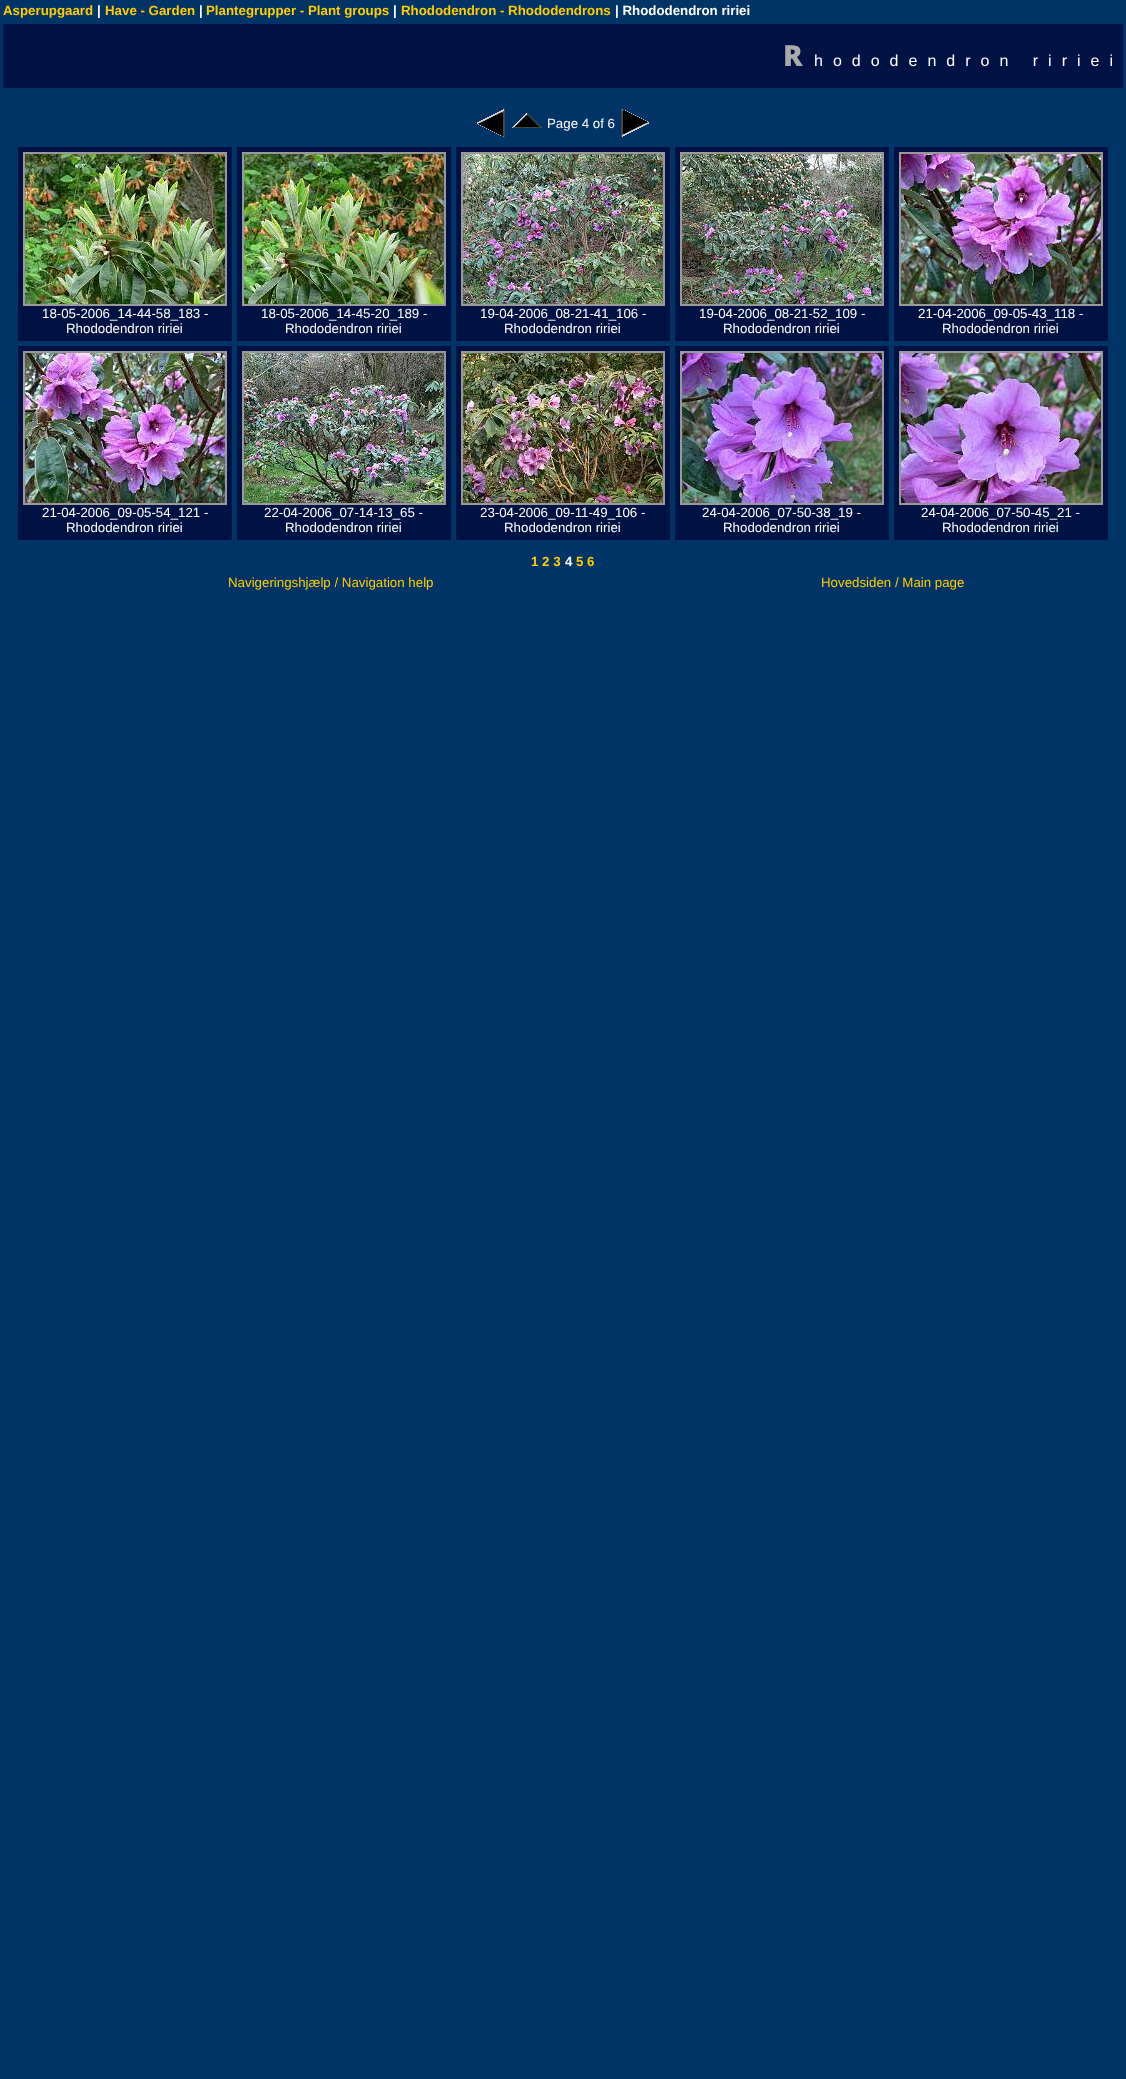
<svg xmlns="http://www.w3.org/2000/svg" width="1126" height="2079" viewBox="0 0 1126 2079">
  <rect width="100%" height="100%" fill="#036"/>
  <path d="M3 24h1120v64H3z" fill="#014"/>
  <image x="477" y="109" width="28" height="28" href="img/1.png"/>
  <image x="512" y="113" width="30" height="15" href="img/2.png"/>
  <image x="621" y="109" width="28" height="28" href="img/3.png"/>
  <path d="M18 147h214v194H18z" fill="#014"/>
  <path d="M24 153h202v152H24z" fill="none" stroke="#999" stroke-width="2"/>
  <image x="25" y="154" width="200" height="150" href="img/4.png"/>
  <path d="M237 147h214v194H237z" fill="#014"/>
  <path d="M243 153h202v152H243z" fill="none" stroke="#999" stroke-width="2"/>
  <image x="244" y="154" width="200" height="150" href="img/5.png"/>
  <path d="M456 147h214v194H456z" fill="#014"/>
  <path d="M462 153h202v152H462z" fill="none" stroke="#999" stroke-width="2"/>
  <image x="463" y="154" width="200" height="150" href="img/6.png"/>
  <path d="M675 147h214v194H675z" fill="#014"/>
  <path d="M681 153h202v152H681z" fill="none" stroke="#999" stroke-width="2"/>
  <image x="682" y="154" width="200" height="150" href="img/7.png"/>
  <path d="M894 147h214v194H894z" fill="#014"/>
  <path d="M900 153h202v152H900z" fill="none" stroke="#999" stroke-width="2"/>
  <image x="901" y="154" width="200" height="150" href="img/8.png"/>
  <path d="M18 346h214v194H18z" fill="#014"/>
  <path d="M24 352h202v152H24z" fill="none" stroke="#999" stroke-width="2"/>
  <image x="25" y="353" width="200" height="150" href="img/9.png"/>
  <path d="M237 346h214v194H237z" fill="#014"/>
  <path d="M243 352h202v152H243z" fill="none" stroke="#999" stroke-width="2"/>
  <image x="244" y="353" width="200" height="150" href="img/10.png"/>
  <path d="M456 346h214v194H456z" fill="#014"/>
  <path d="M462 352h202v152H462z" fill="none" stroke="#999" stroke-width="2"/>
  <image x="463" y="353" width="200" height="150" href="img/11.png"/>
  <path d="M675 346h214v194H675z" fill="#014"/>
  <path d="M681 352h202v152H681z" fill="none" stroke="#999" stroke-width="2"/>
  <image x="682" y="353" width="200" height="150" href="img/12.png"/>
  <path d="M894 346h214v194H894z" fill="#014"/>
  <path d="M900 352h202v152H900z" fill="none" stroke="#999" stroke-width="2"/>
  <image x="901" y="353" width="200" height="150" href="img/13.png"/>
  <text x="3" y="15" font-family="Liberation Sans" font-size="13.3" font-weight="bold" fill="#fc0">Asperupgaard</text>
  <text x="97" y="15" font-family="Liberation Sans" font-size="13.3" font-weight="bold" fill="#fff">|</text>
  <text x="105" y="15" font-family="Liberation Sans" font-size="13.3" font-weight="bold" fill="#fc0">Have - Garden</text>
  <text x="199" y="15" font-family="Liberation Sans" font-size="13.3" font-weight="bold" fill="#fff">|</text>
  <text x="206" y="15" font-family="Liberation Sans" font-size="13.3" font-weight="bold" fill="#fc0">Plantegrupper - Plant groups</text>
  <text x="393" y="15" font-family="Liberation Sans" font-size="13.3" font-weight="bold" fill="#fff">|</text>
  <text x="401" y="15" font-family="Liberation Sans" font-size="13.3" font-weight="bold" fill="#fc0">Rhododendron - Rhododendrons</text>
  <text x="615" y="15" font-family="Liberation Sans" font-size="13.3" font-weight="bold" fill="#fff">| Rhododendron ririei</text>
  <text x="783" y="66" font-family="Noto Sans" font-size="29" font-weight="900" letter-spacing="10" fill="#aaa">R</text>
  <text x="814" y="66" font-family="Liberation Sans" font-size="16" letter-spacing="10" fill="#fff">hododendron ririei</text>
  <g font-family="Liberation Sans" font-size="13.3" fill="#fff">
    <text x="547" y="128">Page 4 of 6</text>
    <text x="42" y="318">18-05-2006_14-44-58_183 -</text>
    <text x="66" y="333">Rhododendron ririei</text>
    <text x="261" y="318">18-05-2006_14-45-20_189 -</text>
    <text x="285" y="333">Rhododendron ririei</text>
    <text x="480" y="318">19-04-2006_08-21-41_106 -</text>
    <text x="504" y="333">Rhododendron ririei</text>
    <text x="699" y="318">19-04-2006_08-21-52_109 -</text>
    <text x="723" y="333">Rhododendron ririei</text>
    <text x="918" y="318">21-04-2006_09-05-43_118 -</text>
    <text x="942" y="333">Rhododendron ririei</text>
    <text x="42" y="517">21-04-2006_09-05-54_121 -</text>
    <text x="66" y="532">Rhododendron ririei</text>
    <text x="264" y="517">22-04-2006_07-14-13_65 -</text>
    <text x="285" y="532">Rhododendron ririei</text>
    <text x="480" y="517">23-04-2006_09-11-49_106 -</text>
    <text x="504" y="532">Rhododendron ririei</text>
    <text x="702" y="517">24-04-2006_07-50-38_19 -</text>
    <text x="723" y="532">Rhododendron ririei</text>
    <text x="921" y="517">24-04-2006_07-50-45_21 -</text>
    <text x="942" y="532">Rhododendron ririei</text>
  </g>
  <text x="531" y="566" font-family="Liberation Sans" font-size="13.3" font-weight="bold" fill="#fc0">1 2 3</text>
  <text x="565" y="566" font-family="Liberation Sans" font-size="13.3" font-weight="bold" fill="#fff">4</text>
  <text x="576" y="566" font-family="Liberation Sans" font-size="13.3" font-weight="bold" fill="#fc0">5 6</text>
  <g font-family="Liberation Sans" font-size="13.3" fill="#fc0">
    <text x="228" y="587">Navigeringshjælp / Navigation help</text>
    <text x="821" y="587">Hovedsiden / Main page</text>
  </g>
</svg>
